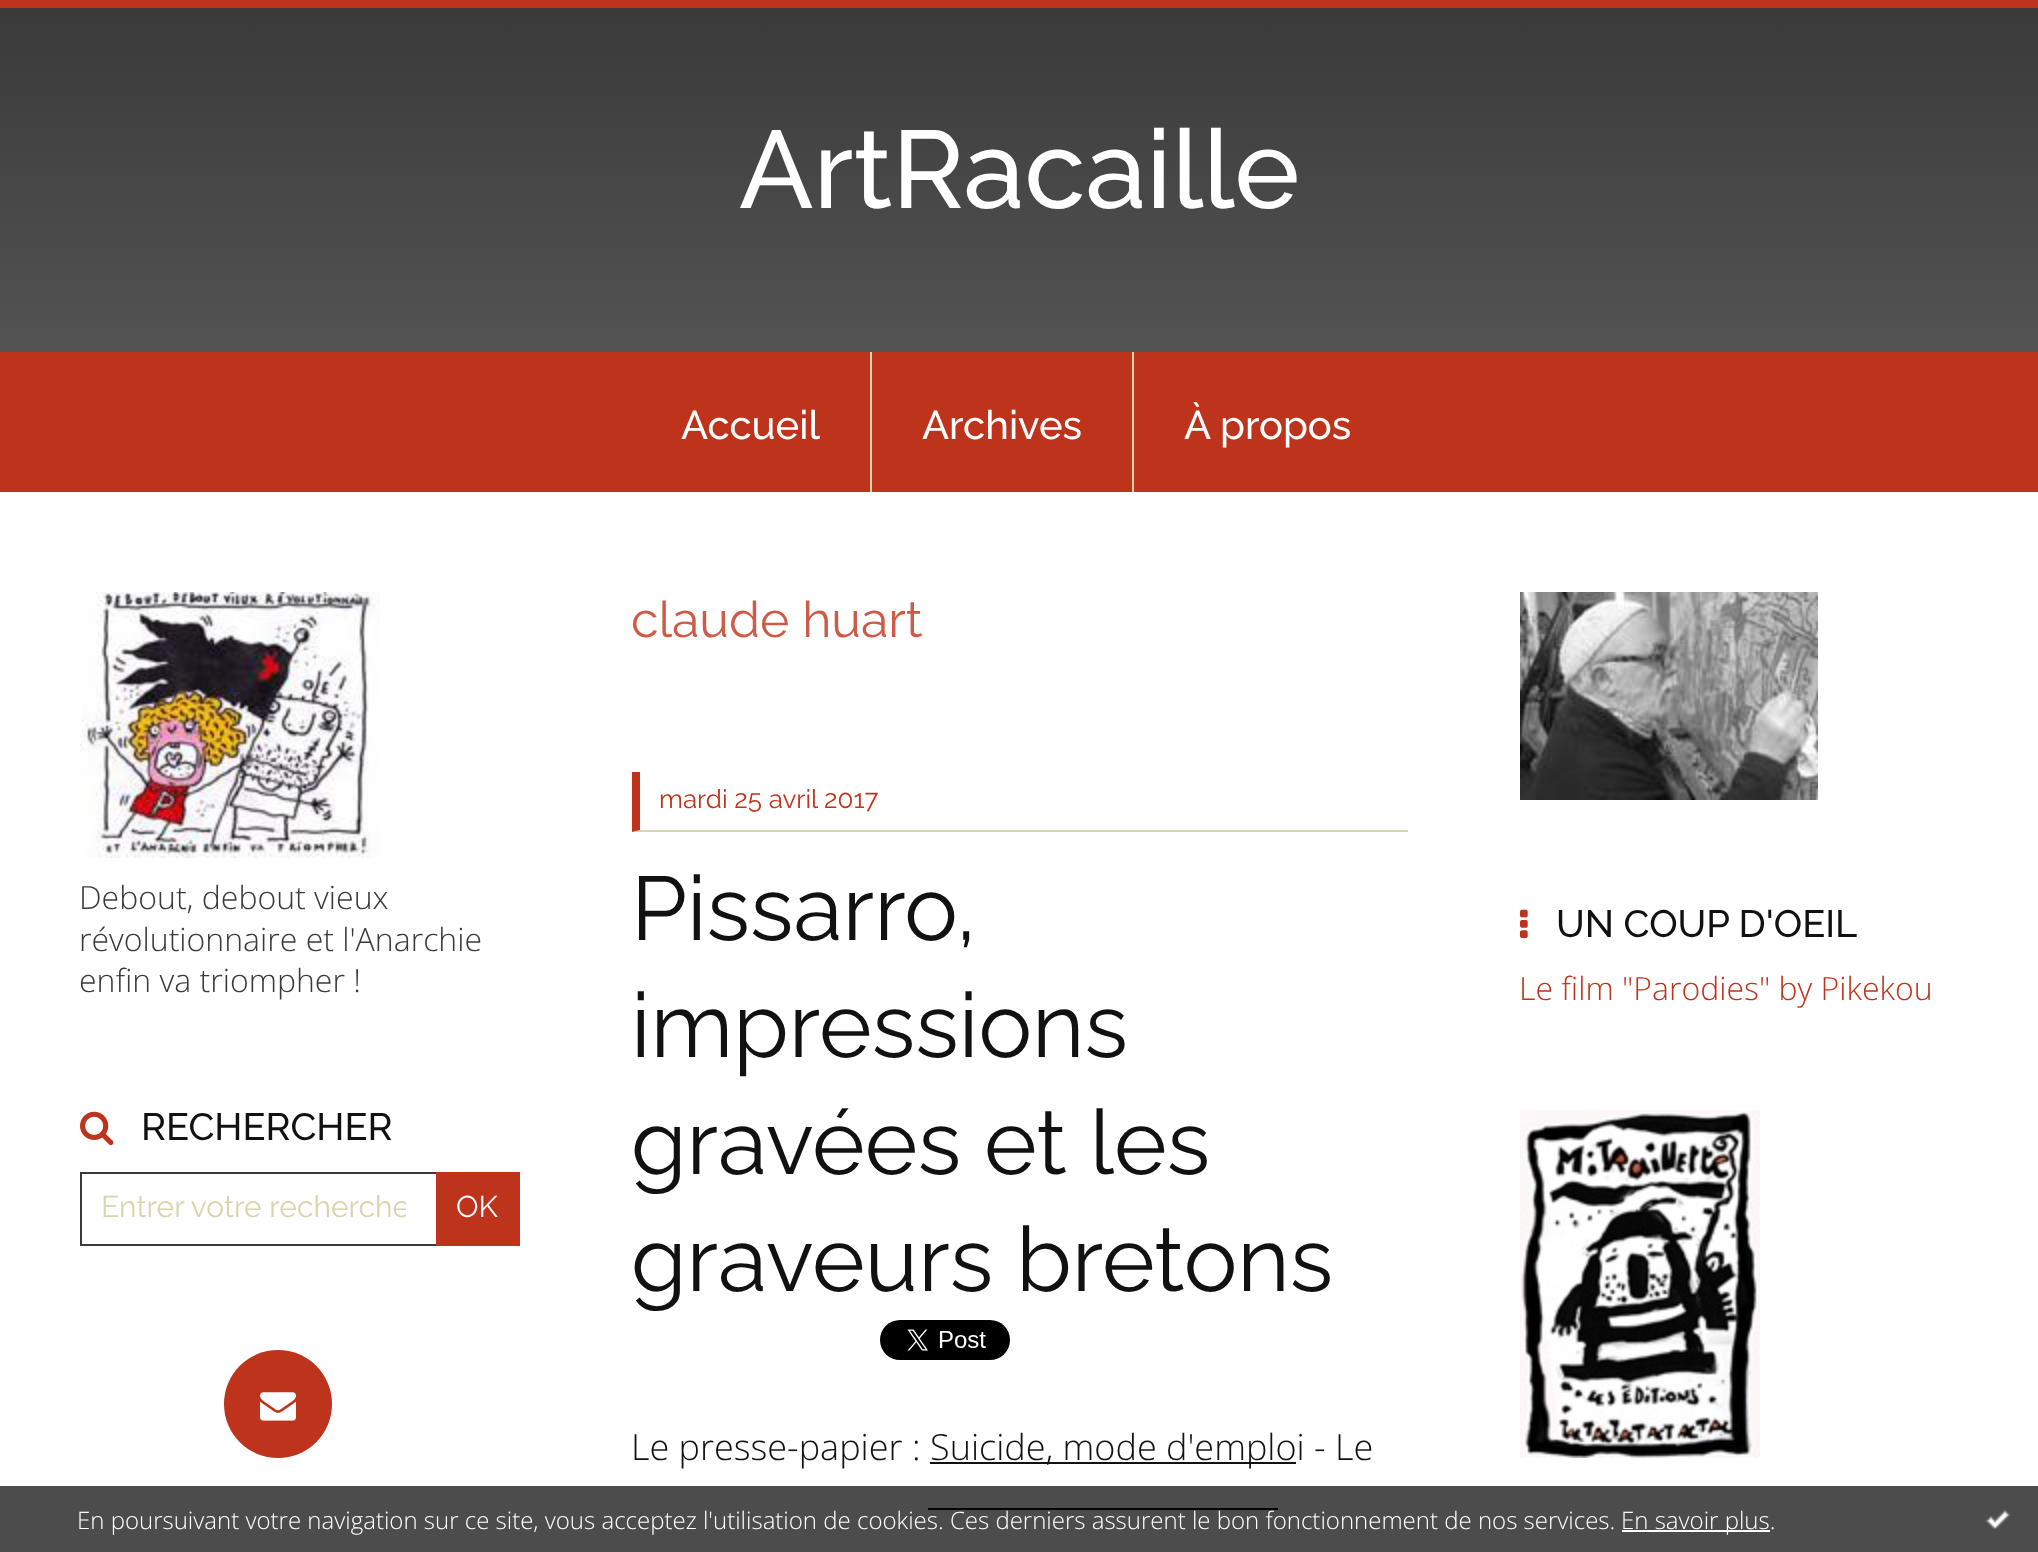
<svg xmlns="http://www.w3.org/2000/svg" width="2038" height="1552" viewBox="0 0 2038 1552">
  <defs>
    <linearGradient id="g1" gradientUnits="userSpaceOnUse" x1="1019" y1="8" x2="1019" y2="352"><stop offset="0" stop-color="#3a3a3a"/><stop offset="1" stop-color="#535353"/></linearGradient>
    <clipPath id="clip1"><path d="M102 1190h304v36H102z"/></clipPath>
  </defs>
  <rect width="100%" height="100%" fill="#fff"/>
  <path d="M0 8h2038v344H0z" fill="url(#g1)"/>
  <path d="M0 0h2038v8H0z" fill="#be331c"/>
  <path d="M0 352h2038v140H0z" fill="#be331c"/>
  <path d="M870 352h2v140H870z" fill="#d5d6ac"/>
  <path d="M1132 352h2v140H1132z" fill="#d5d6ac"/>
  <image x="80" y="592" width="300" height="266" href="img/1.png"/>
  <image x="80" y="1111" width="34" height="35" href="img/2.png"/>
  <path d="M81 1173h438v72H81z" fill="none" stroke="#3a3a3a" stroke-width="2"/>
  <path d="M436 1172h84v74H436z" fill="#be331c"/>
  <circle cx="278" cy="1404" r="54" fill="#be331c"/>
  <image x="260" y="1392" width="36" height="29" href="img/3.png"/>
  <path d="M1408 832H632L640 830H1408Z" fill="#d5d6ac"/>
  <path d="M632 832V772H640V830Z" fill="#be331c"/>
  <image x="880" y="1320" width="130" height="40" href="img/4.png"/>
  <path d="M930 1462h366v2H930z" fill="#111"/>
  <path d="M928 1508h350v2H928z" fill="#111"/>
  <image x="1520" y="592" width="298" height="208" href="img/5.png"/>
  <image x="1520" y="909" width="8" height="29" href="img/6.png"/>
  <image x="1520" y="1110" width="240" height="348" href="img/7.png"/>
  <path d="M0 1486h2038v66H0z" fill="#000000b3"/>
  <path d="M1622 1530h148v2H1622z" fill="#fff"/>
  <image x="1985" y="1509" width="26" height="20" href="img/8.png"/>
  <text x="739" y="208" font-family="Raleway" font-size="110" font-weight="500" fill="#fff">ArtRacaille</text>
  <g font-family="Raleway" font-size="40" font-weight="500" fill="#fff">
    <text x="681" y="439">Accueil</text>
    <text x="922" y="439">Archives</text>
    <text x="1184" y="439">À propos</text>
  </g>
  <g font-family="Open Sans" font-size="32" font-weight="300" fill="#3a3a3a">
    <text x="79" y="909">Debout, debout vieux</text>
    <text x="79" y="951">révolutionnaire et l'Anarchie</text>
    <text x="79" y="992">enfin va triompher !</text>
  </g>
  <text x="141" y="1140" font-family="Raleway" font-size="38" font-weight="500" fill="#111">RECHERCHER</text>
  <g clip-path="url(#clip1)">
    <text x="101" y="1217" font-family="Raleway" font-size="30" fill="#d5d6ac">Entrer votre recherche</text>
  </g>
  <text x="456" y="1217" font-family="Raleway" font-size="30" fill="#fff">OK</text>
  <text x="631" y="637" font-family="Raleway" font-size="50" fill="#cd5b47">claude huart</text>
  <text x="659" y="808" font-family="Raleway" font-size="26" fill="#be331c">mardi 25 avril 2017</text>
  <g font-family="Raleway" font-size="90" fill="#111">
    <text x="631" y="940">Pissarro,</text>
    <text x="631" y="1057">impressions</text>
    <text x="631" y="1174">gravées et les</text>
    <text x="631" y="1291">graveurs bretons</text>
  </g>
  <g font-family="Open Sans" font-size="36" font-weight="300" fill="#111">
    <text x="631" y="1460">Le presse-papier :</text>
    <text x="930" y="1460">Suicide, mode d'emploi - Le</text>
  </g>
  <text x="1556" y="937" font-family="Raleway" font-size="38" font-weight="500" fill="#111">UN COUP D'OEIL</text>
  <text x="1519" y="1000" font-family="Open Sans" font-size="32" font-weight="300" fill="#be331c">Le film "Parodies" by Pikekou</text>
  <g font-family="Open Sans" font-size="24" font-weight="300" fill="#fff">
    <text x="77" y="1529">En poursuivant votre navigation sur ce site, vous acceptez l'utilisation de cookies. Ces derniers assurent le bon fonctionnement de nos services.</text>
    <text x="1621" y="1529">En savoir plus.</text>
  </g>
</svg>
